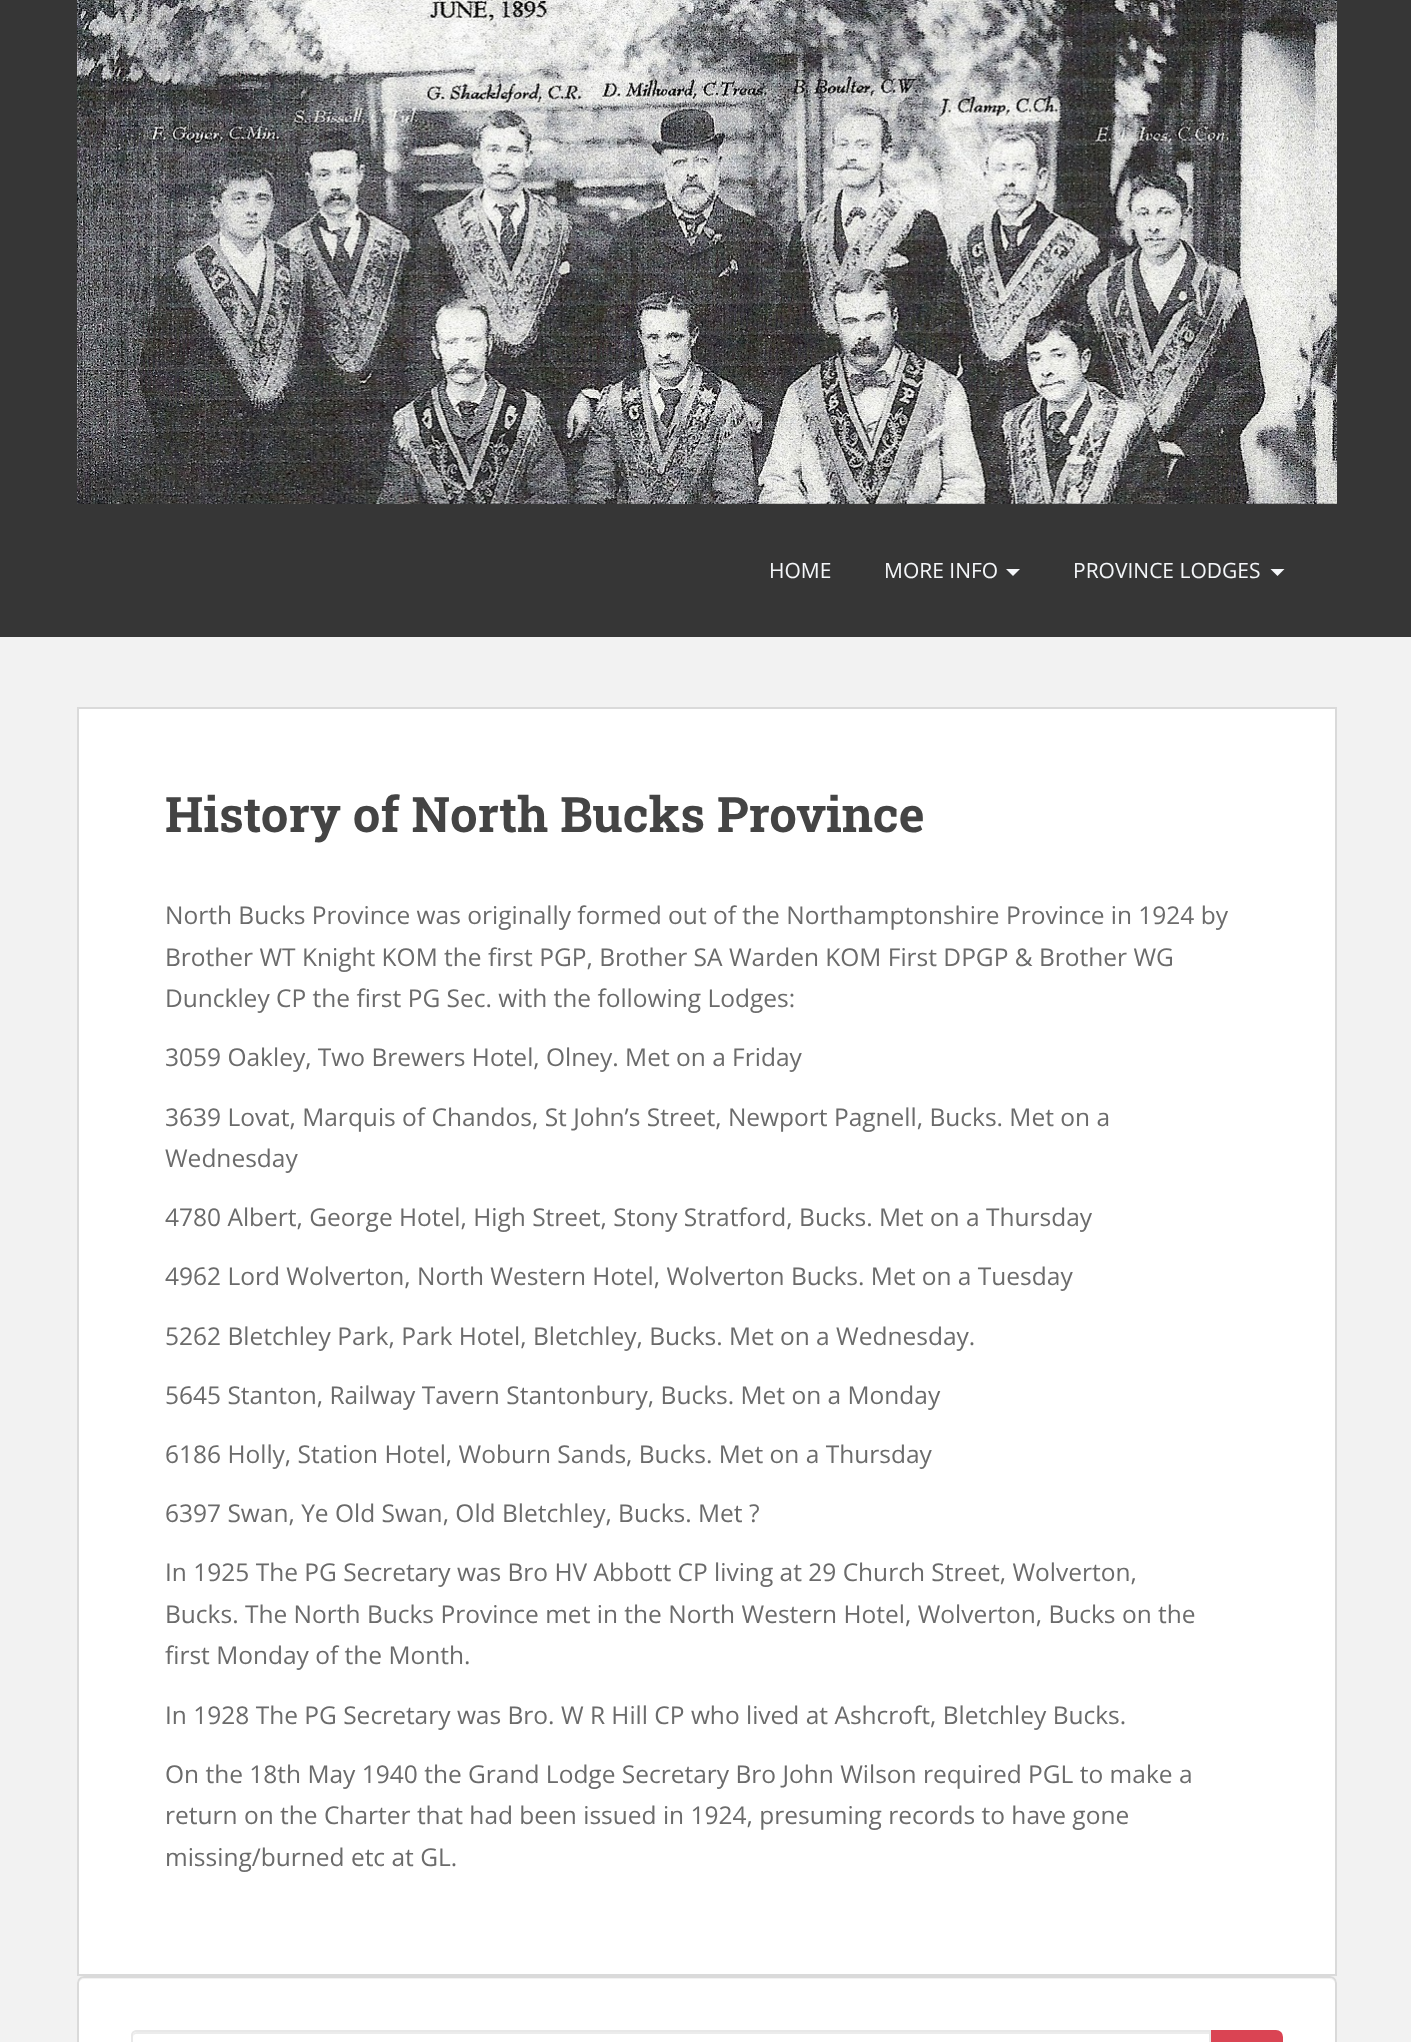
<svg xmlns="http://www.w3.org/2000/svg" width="1411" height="2042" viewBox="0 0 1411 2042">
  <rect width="100%" height="100%" fill="#f2f2f2"/>
  <path d="M0 0h1411v637H0z" fill="#363636"/>
  <image x="77" y="0" width="1260" height="504" href="img/1.png"/>
  <path d="M1006 569H1020L1013 576Z" fill="#f5f7fa"/>
  <path d="M1270.5 569H1284.5L1277.5 576Z" fill="#f5f7fa"/>
  <path d="M78 708h1258v1267H78z" fill="#fff" stroke="#dadada" stroke-width="2"/>
  <rect x="77" y="1976" width="1260" height="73" rx="7" fill="#fff"/>
  <path d="M84 1979H1330C1333 1979 1335 1982 1335 1984C1335 1981 1333 1978 1330 1978H84C81 1978 79 1981 79 1984C79 1982 81 1979 84 1979Z" fill="#f2f2f2"/>
  <rect x="78" y="1977" width="1258" height="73" rx="6" fill="none" stroke="#dadada" stroke-width="2"/>
  <path d="M136 2034H1209V2032H137C134 2032 133 2034 133 2037C133 2035 135 2034 136 2034Z" fill="#ececec"/>
  <path d="M136 2031H1210V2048H136C134 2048 132 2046 132 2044V2035C132 2033 134 2031 136 2031Z" fill="none" stroke="#e8e8e8" stroke-width="2"/>
  <path d="M1212 2031H1276C1279.5 2031 1282 2033.5 1282 2037V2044C1282 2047.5 1279.5 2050 1276 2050H1212Z" fill="#da4453" stroke="#da4453" stroke-width="2"/>
  <g font-family="Open Sans" font-size="21" fill="#f5f7fa">
    <text x="769" y="578">HOME</text>
    <text x="884" y="578">MORE INFO</text>
    <text x="1073" y="578">PROVINCE LODGES</text>
  </g>
  <text x="165" y="832" font-family="Roboto Slab" font-size="49" font-weight="bold" fill="#444">History of North Bucks Province</text>
  <g font-family="Open Sans" font-size="24.5" fill="#6b6b6b">
    <text x="165" y="924">North Bucks Province was originally formed out of the Northamptonshire Province in 1924 by</text>
    <text x="165" y="966">Brother WT Knight KOM the first PGP, Brother SA Warden KOM First DPGP &amp; Brother WG</text>
    <text x="165" y="1007">Dunckley CP the first PG Sec. with the following Lodges:</text>
    <text x="165" y="1066">3059 Oakley, Two Brewers Hotel, Olney. Met on a Friday</text>
    <text x="165" y="1126">3639 Lovat, Marquis of Chandos, St John’s Street, Newport Pagnell, Bucks. Met on a</text>
    <text x="165" y="1167">Wednesday</text>
    <text x="165" y="1226">4780 Albert, George Hotel, High Street, Stony Stratford, Bucks. Met on a Thursday</text>
    <text x="165" y="1285">4962 Lord Wolverton, North Western Hotel, Wolverton Bucks. Met on a Tuesday</text>
    <text x="165" y="1345">5262 Bletchley Park, Park Hotel, Bletchley, Bucks. Met on a Wednesday.</text>
    <text x="165" y="1404">5645 Stanton, Railway Tavern Stantonbury, Bucks. Met on a Monday</text>
    <text x="165" y="1463">6186 Holly, Station Hotel, Woburn Sands, Bucks. Met on a Thursday</text>
    <text x="165" y="1522">6397 Swan, Ye Old Swan, Old Bletchley, Bucks. Met ?</text>
    <text x="165" y="1581">In 1925 The PG Secretary was Bro HV Abbott CP living at 29 Church Street, Wolverton,</text>
    <text x="165" y="1623">Bucks. The North Bucks Province met in the North Western Hotel, Wolverton, Bucks on the</text>
    <text x="165" y="1664">first Monday of the Month.</text>
    <text x="165" y="1724">In 1928 The PG Secretary was Bro. W R Hill CP who lived at Ashcroft, Bletchley Bucks.</text>
    <text x="165" y="1783">On the 18th May 1940 the Grand Lodge Secretary Bro John Wilson required PGL to make a</text>
    <text x="165" y="1824">return on the Charter that had been issued in 1924, presuming records to have gone</text>
    <text x="165" y="1866">missing/burned etc at GL.</text>
  </g>
</svg>
